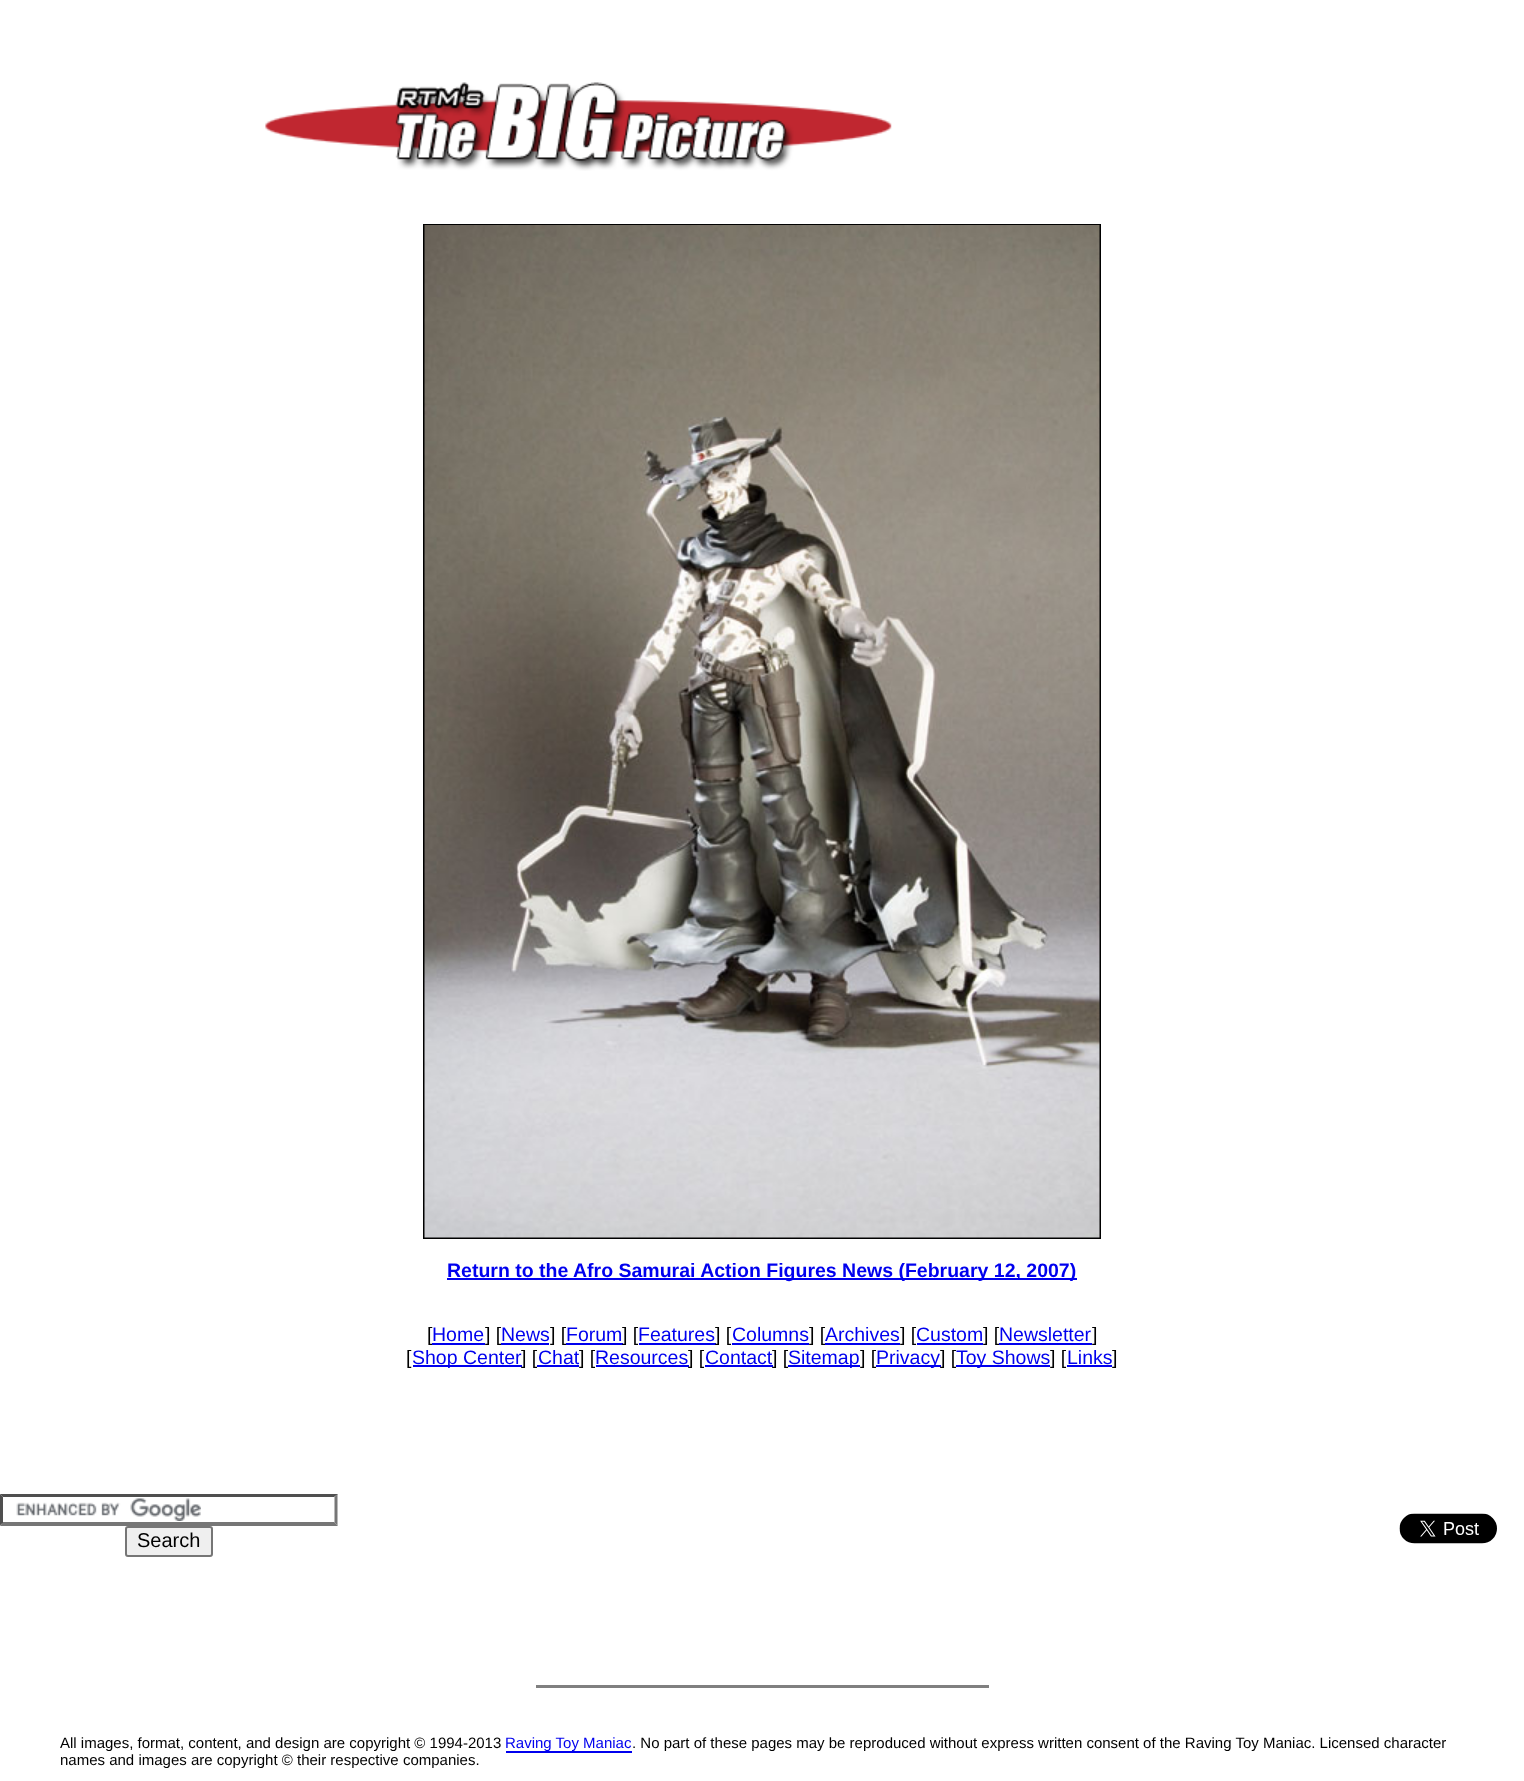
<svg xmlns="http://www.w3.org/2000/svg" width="1524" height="1781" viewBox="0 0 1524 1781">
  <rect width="100%" height="100%" fill="#fff"/>
  <image x="265" y="82" width="627" height="89" href="img/1.png"/>
  <path d="M424 225h676v1013H424z" fill="none" stroke="#000" stroke-width="2"/>
  <image x="424" y="225" width="676" height="1013" href="img/2.png"/>
  <path d="M447 1278h630v2H447z" fill="#00e"/>
  <path d="M501 1343h48v2H501z" fill="#00e"/>
  <path d="M566 1343h57v2H566z" fill="#00e"/>
  <path d="M639 1343h77v2H639z" fill="#00e"/>
  <path d="M732 1343h77v2H732z" fill="#00e"/>
  <path d="M825 1343h75v2H825z" fill="#00e"/>
  <path d="M917 1343h66v2H917z" fill="#00e"/>
  <path d="M413 1365h109v2H413z" fill="#00e"/>
  <path d="M596 1365h93v2H596z" fill="#00e"/>
  <path d="M705 1365h68v2H705z" fill="#00e"/>
  <path d="M788 1365h72v2H788z" fill="#00e"/>
  <path d="M876 1365h65v2H876z" fill="#00e"/>
  <path d="M956 1365h94v2H956z" fill="#00e"/>
  <path d="M1067 1365h45v2H1067z" fill="#00e"/>
  <image x="16" y="1498" width="185" height="23" href="img/3.png"/>
  <path d="M0 1494H338L334 1497H3Z" fill="#4f4f4f"/>
  <path d="M337.5 1494V1525.5L334.5 1522.5V1497Z" fill="#767676"/>
  <path d="M338 1526H0L3 1522H334Z" fill="#767676"/>
  <path d="M0 1525.5V1494L3 1497V1522.5Z" fill="#4f4f4f"/>
  <rect x="126" y="1527" width="86" height="29" rx="2" fill="#efefef" stroke="#767676" stroke-width="2"/>
  <image x="1399" y="1513" width="98" height="31" href="img/4.png"/>
  <path d="M536 1685h453v3H536z" fill="#808080"/>
  <path d="M506 1751h126v2H506z" fill="#00e"/>
  <text x="447" y="1277" font-family="Liberation Sans" font-size="19.5" font-weight="bold" fill="#00e">Return to the Afro Samurai Action Figures News (February 12, 2007)</text>
  <text x="427" y="1341" font-family="Liberation Sans" font-size="19.5" fill="#000">[</text>
  <path d="M432 1343h53v2H432z" fill="#00e"/>
  <text x="432" y="1341" font-family="Liberation Sans" font-size="19.5" fill="#00e">Home</text>
  <text x="485" y="1341" font-family="Liberation Sans" font-size="19.5" fill="#000">] [</text>
  <text x="501" y="1341" font-family="Liberation Sans" font-size="19.5" fill="#00e">News</text>
  <text x="550" y="1341" font-family="Liberation Sans" font-size="19.5" fill="#000">] [</text>
  <text x="566" y="1341" font-family="Liberation Sans" font-size="19.5" fill="#00e">Forum</text>
  <text x="622" y="1341" font-family="Liberation Sans" font-size="19.5" fill="#000">] [</text>
  <text x="638" y="1341" font-family="Liberation Sans" font-size="19.5" fill="#00e">Features</text>
  <text x="715" y="1341" font-family="Liberation Sans" font-size="19.5" fill="#000">] [</text>
  <text x="732" y="1341" font-family="Liberation Sans" font-size="19.5" fill="#00e">Columns</text>
  <text x="809" y="1341" font-family="Liberation Sans" font-size="19.5" fill="#000">] [</text>
  <text x="825" y="1341" font-family="Liberation Sans" font-size="19.5" fill="#00e">Archives</text>
  <text x="900" y="1341" font-family="Liberation Sans" font-size="19.5" fill="#000">] [</text>
  <text x="916" y="1341" font-family="Liberation Sans" font-size="19.5" fill="#00e">Custom</text>
  <text x="983" y="1341" font-family="Liberation Sans" font-size="19.5" fill="#000">] [</text>
  <path d="M999 1343h93v2H999z" fill="#00e"/>
  <text x="999" y="1341" font-family="Liberation Sans" font-size="19.5" fill="#00e">Newsletter</text>
  <g font-family="Liberation Sans" font-size="19.5" fill="#000">
    <text x="1092" y="1341">]</text>
    <text x="406" y="1364">[</text>
  </g>
  <text x="412" y="1364" font-family="Liberation Sans" font-size="19.5" fill="#00e">Shop Center</text>
  <text x="521" y="1364" font-family="Liberation Sans" font-size="19.5" fill="#000">] [</text>
  <path d="M537 1365h42v2H537z" fill="#00e"/>
  <text x="538" y="1364" font-family="Liberation Sans" font-size="19.5" fill="#00e">Chat</text>
  <text x="579" y="1364" font-family="Liberation Sans" font-size="19.5" fill="#000">] [</text>
  <text x="595" y="1364" font-family="Liberation Sans" font-size="19.5" fill="#00e">Resources</text>
  <text x="688" y="1364" font-family="Liberation Sans" font-size="19.5" fill="#000">] [</text>
  <text x="705" y="1364" font-family="Liberation Sans" font-size="19.5" fill="#00e">Contact</text>
  <text x="772" y="1364" font-family="Liberation Sans" font-size="19.5" fill="#000">] [</text>
  <text x="788" y="1364" font-family="Liberation Sans" font-size="19.5" fill="#00e">Sitemap</text>
  <text x="860" y="1364" font-family="Liberation Sans" font-size="19.5" fill="#000">] [</text>
  <text x="876" y="1364" font-family="Liberation Sans" font-size="19.5" fill="#00e">Privacy</text>
  <text x="940" y="1364" font-family="Liberation Sans" font-size="19.5" fill="#000">] [</text>
  <text x="956" y="1364" font-family="Liberation Sans" font-size="19.5" fill="#00e">Toy Shows</text>
  <text x="1050" y="1364" font-family="Liberation Sans" font-size="19.5" fill="#000">] [</text>
  <text x="1067" y="1364" font-family="Liberation Sans" font-size="19.5" fill="#00e">Links</text>
  <text x="1112" y="1364" font-family="Liberation Sans" font-size="19.5" fill="#000">]</text>
  <text x="137" y="1547" font-family="Liberation Sans" font-size="20" fill="#000">Search</text>
  <text x="60" y="1748" font-family="Liberation Sans" font-size="15" fill="#000">All images, format, content, and design are copyright © 1994-2013</text>
  <text x="505" y="1748" font-family="Liberation Sans" font-size="15" fill="#00e">Raving Toy Maniac</text>
  <g font-family="Liberation Sans" font-size="15" fill="#000">
    <text x="632" y="1748">. No part of these pages may be reproduced without express written consent of the Raving Toy Maniac. Licensed character</text>
    <text x="60" y="1765">names and images are copyright © their respective companies.</text>
  </g>
</svg>
